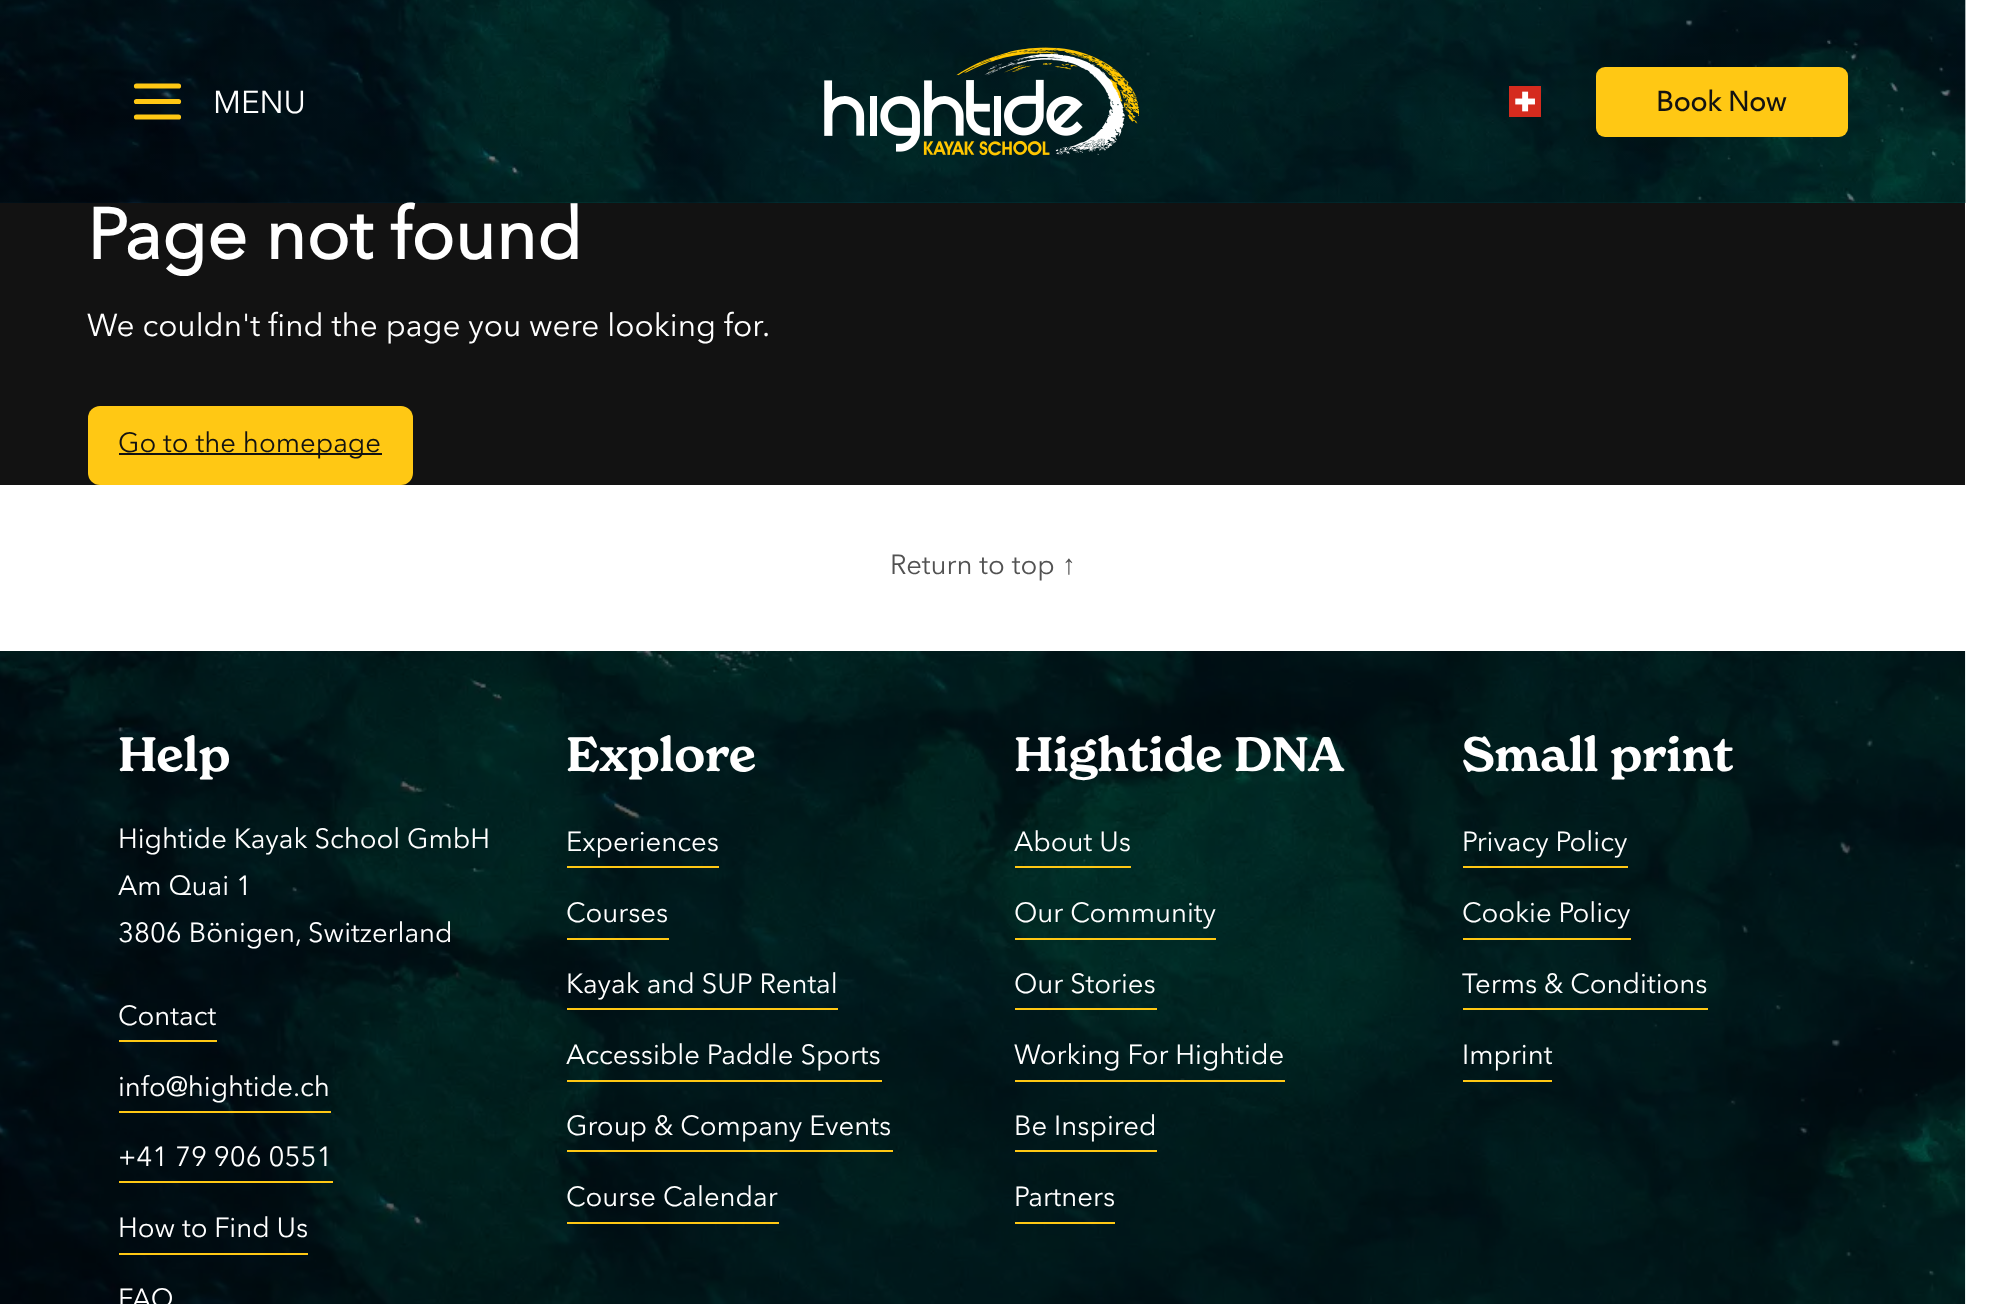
<svg xmlns="http://www.w3.org/2000/svg" width="1991" height="1304" viewBox="0 0 1991 1304">
  <rect width="100%" height="100%" fill="#fff"/>
  <image x="0" y="0" width="1966" height="203" href="img/1.png"/>
  <path d="M136.5 101.5H178.5M136.5 117H178.5M136.5 86H178.5" fill="none" stroke="#ffc814" stroke-width="5.2" stroke-linecap="round" stroke-linejoin="round"/>
  <image x="824" y="47" width="315" height="109" href="img/2.png"/>
  <image x="1509" y="86" width="32" height="31" href="img/3.png"/>
  <rect x="1596" y="67" width="252" height="70" rx="9" fill="#ffc814"/>
  <path d="M0 203h1965v282H0z" fill="#121212"/>
  <rect x="88" y="406" width="325" height="79" rx="12" fill="#ffc814"/>
  <path d="M119 453h263v2H119z" fill="#121212"/>
  <image x="0" y="651" width="1966" height="653" href="img/4.png"/>
  <path d="M119 1040h98v2H119z" fill="#ffc814"/>
  <path d="M119 1111h212v2H119z" fill="#ffc814"/>
  <path d="M119 1181h214v2H119z" fill="#ffc814"/>
  <path d="M119 1253h189v2H119z" fill="#ffc814"/>
  <path d="M567 866h152v2H567z" fill="#ffc814"/>
  <path d="M567 938h102v2H567z" fill="#ffc814"/>
  <path d="M567 1008h271v2H567z" fill="#ffc814"/>
  <path d="M567 1080h315v2H567z" fill="#ffc814"/>
  <path d="M567 1150h326v2H567z" fill="#ffc814"/>
  <path d="M567 1222h212v2H567z" fill="#ffc814"/>
  <path d="M1015 866h116v2H1015z" fill="#ffc814"/>
  <path d="M1015 938h201v2H1015z" fill="#ffc814"/>
  <path d="M1015 1008h142v2H1015z" fill="#ffc814"/>
  <path d="M1015 1080h270v2H1015z" fill="#ffc814"/>
  <path d="M1015 1150h142v2H1015z" fill="#ffc814"/>
  <path d="M1015 1222h100v2H1015z" fill="#ffc814"/>
  <path d="M1463 866h165v2H1463z" fill="#ffc814"/>
  <path d="M1463 938h168v2H1463z" fill="#ffc814"/>
  <path d="M1463 1008h245v2H1463z" fill="#ffc814"/>
  <path d="M1463 1080h89v2H1463z" fill="#ffc814"/>
  <text x="213" y="113" font-family="Avenir Next" font-size="31.5" fill="#fff">MENU</text>
  <text x="1656" y="111" font-family="Avenir Next" font-size="27.5" font-weight="bold" fill="#121212">Book Now</text>
  <text x="87" y="259" font-family="Avenir Next" font-size="71" font-weight="bold" fill="#fff">Page not found</text>
  <text x="87" y="336" font-family="Avenir Next" font-size="31.5" fill="#fff">We couldn't find the page you were looking for.</text>
  <text x="118" y="452" font-family="Avenir Next" font-size="27.5" fill="#121212">Go to the homepage</text>
  <text x="890" y="574" font-family="Avenir Next" font-size="27.5" fill="#525252">Return to top</text>
  <text x="1062" y="574" font-family="Liberation Sans" font-size="27.5" fill="#525252">↑</text>
  <text x="118" y="771" font-family="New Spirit" font-size="47.25" font-weight="600" fill="#fff">Help</text>
  <g font-family="Avenir Next" font-size="27.5" fill="#fff">
    <text x="118" y="848">Hightide Kayak School GmbH</text>
    <text x="118" y="895">Am Quai 1</text>
    <text x="118" y="942">3806 Bönigen, Switzerland</text>
    <text x="118" y="1025">Contact</text>
    <text x="118" y="1096">info@hightide.ch</text>
    <text x="118" y="1166">+41 79 906 0551</text>
    <text x="118" y="1237">How to Find Us</text>
    <text x="118" y="1308">FAQ</text>
  </g>
  <text x="566" y="771" font-family="New Spirit" font-size="47.25" font-weight="600" fill="#fff">Explore</text>
  <g font-family="Avenir Next" font-size="27.5" fill="#fff">
    <text x="566" y="851">Experiences</text>
    <text x="566" y="922">Courses</text>
    <text x="566" y="993">Kayak and SUP Rental</text>
    <text x="566" y="1064">Accessible Paddle Sports</text>
    <text x="566" y="1135">Group &amp; Company Events</text>
    <text x="566" y="1206">Course Calendar</text>
  </g>
  <text x="1014" y="771" font-family="New Spirit" font-size="47.25" font-weight="600" fill="#fff">Hightide DNA</text>
  <g font-family="Avenir Next" font-size="27.5" fill="#fff">
    <text x="1014" y="851">About Us</text>
    <text x="1014" y="922">Our Community</text>
    <text x="1014" y="993">Our Stories</text>
    <text x="1014" y="1064">Working For Hightide</text>
    <text x="1014" y="1135">Be Inspired</text>
    <text x="1014" y="1206">Partners</text>
  </g>
  <text x="1462" y="771" font-family="New Spirit" font-size="47.25" font-weight="600" fill="#fff">Small print</text>
  <g font-family="Avenir Next" font-size="27.5" fill="#fff">
    <text x="1462" y="851">Privacy Policy</text>
    <text x="1462" y="922">Cookie Policy</text>
    <text x="1462" y="993">Terms &amp; Conditions</text>
    <text x="1462" y="1064">Imprint</text>
  </g>
</svg>
